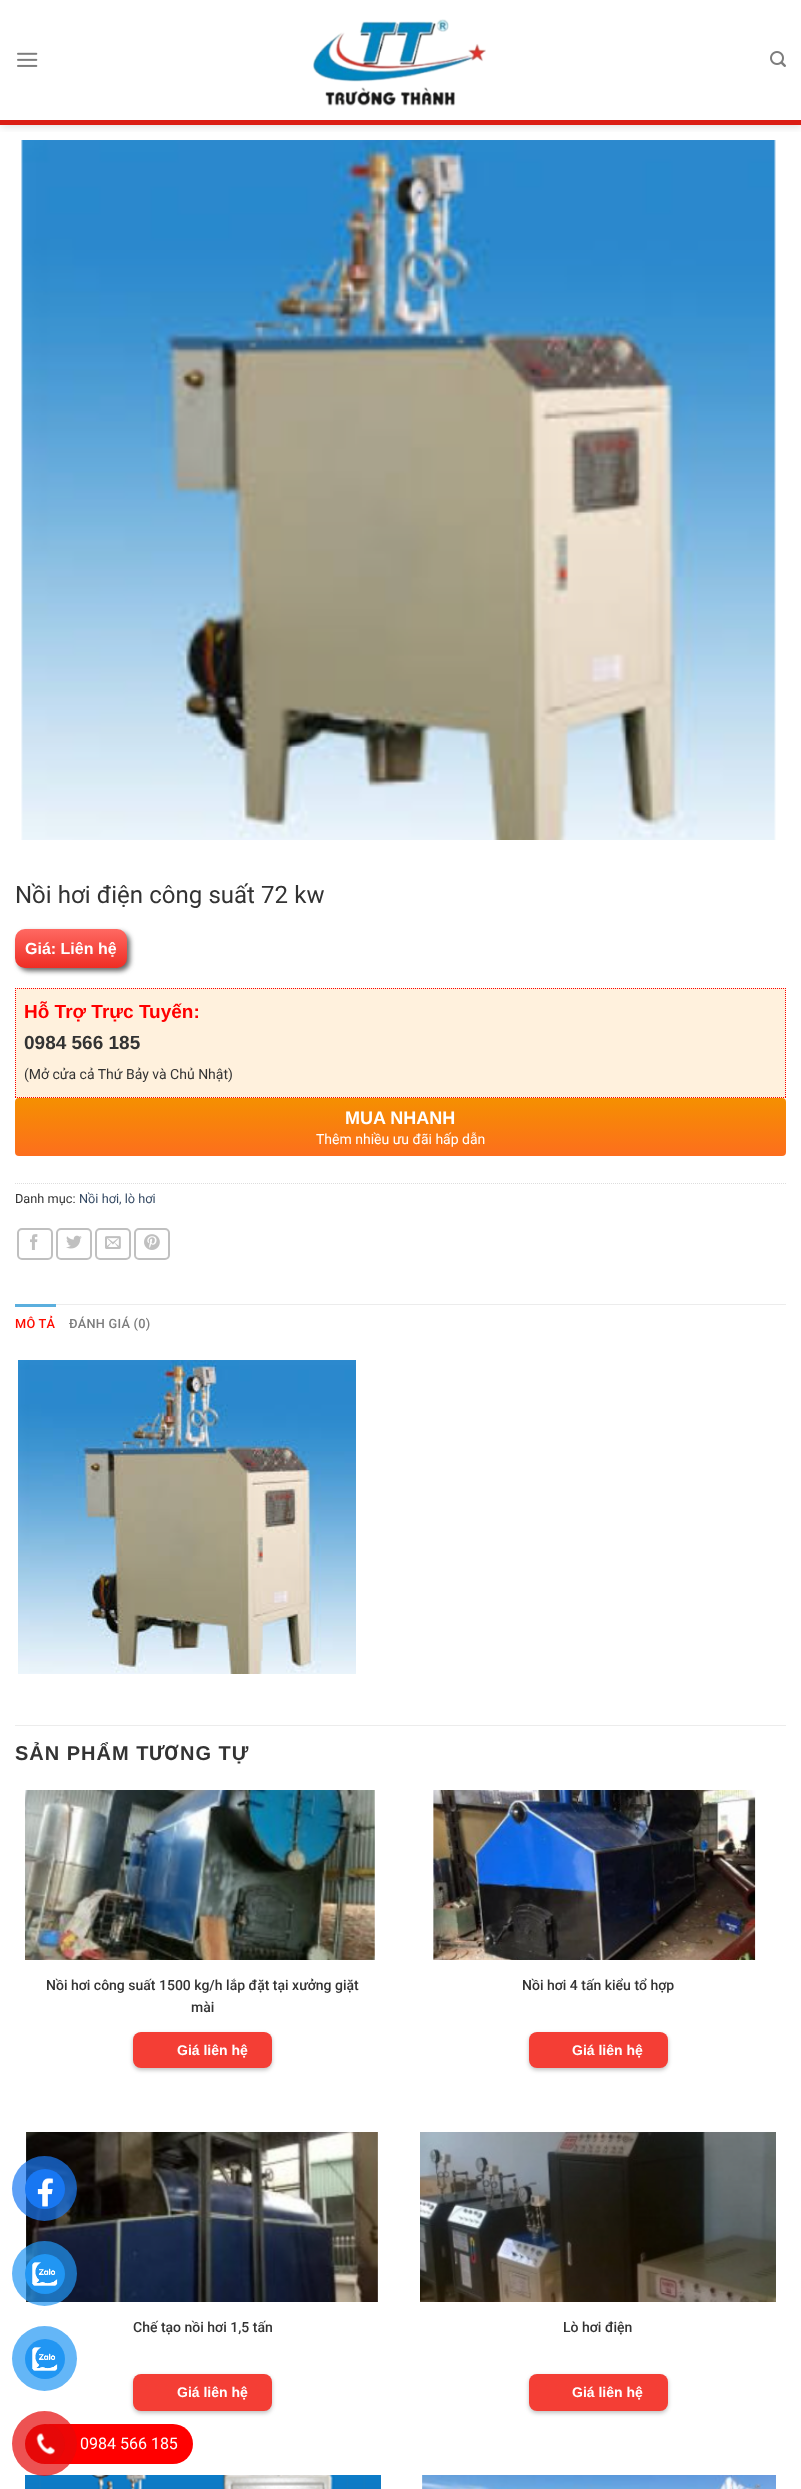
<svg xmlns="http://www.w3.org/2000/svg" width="801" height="2489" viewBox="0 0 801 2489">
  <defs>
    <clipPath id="clip1"><path d="M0 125h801v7H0z"/></clipPath>
    <linearGradient id="g1" gradientUnits="userSpaceOnUse" x1="71" y1="929" x2="71" y2="968"><stop offset="0" stop-color="#ff6962"/><stop offset="1" stop-color="#ee2d24"/></linearGradient>
    <linearGradient id="g2" gradientUnits="userSpaceOnUse" x1="401" y1="1098" x2="401" y2="1156"><stop offset="0" stop-color="#f59000"/><stop offset="1" stop-color="#fd6e1d"/></linearGradient>
  </defs>
  <rect width="100%" height="100%" fill="#fff"/>
  <image x="21" y="140" width="755" height="700" href="img/4.png"/>
  <g clip-path="url(#clip1)">
    <path d="M1 1h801v125H1z" fill="#00000026" filter="blur(5px)"/>
  </g>
  <path d="M0 120h801v5H0z" fill="#db1d14"/>
  <image x="17" y="52" width="21" height="15" href="img/1.png"/>
  <image x="313" y="19" width="173" height="87" href="img/2.png"/>
  <image x="770" y="51" width="16" height="16" href="img/3.png"/>
  <rect x="18" y="932" width="112" height="39" rx="10" fill="#666" filter="blur(2.5px)"/>
  <rect x="15" y="929" width="112" height="39" rx="10" fill="url(#g1)"/>
  <path d="M15 988h771v110H15z" fill="#fff1dd"/>
  <path d="M15 988.5H786" fill="none" stroke="#f00" stroke-dasharray="1 1"/>
  <path d="M785.5 988V1098" fill="none" stroke="#f00" stroke-dasharray="1 1"/>
  <path d="M15 1097.5H786" fill="none" stroke="#f00" stroke-dasharray="1 1"/>
  <path d="M15.5 988V1098" fill="none" stroke="#f00" stroke-dasharray="1 1"/>
  <rect x="15" y="1098" width="771" height="58" rx="4" fill="url(#g2)"/>
  <path d="M15 1183.5H786" fill="none" stroke="#ddd" stroke-dasharray="1 1"/>
  <rect x="18" y="1229" width="34" height="30" rx="4" fill="none" stroke="#c0c0c0" stroke-width="2"/>
  <image x="30" y="1234" width="8" height="16" href="img/5.png"/>
  <rect x="57" y="1229" width="34" height="30" rx="4" fill="none" stroke="#c0c0c0" stroke-width="2"/>
  <image x="66" y="1235" width="16" height="14" href="img/6.png"/>
  <rect x="96" y="1229" width="34" height="30" rx="4" fill="none" stroke="#c0c0c0" stroke-width="2"/>
  <image x="105" y="1236" width="16" height="13" href="img/7.png"/>
  <rect x="135" y="1229" width="34" height="30" rx="4" fill="none" stroke="#c0c0c0" stroke-width="2"/>
  <image x="144" y="1234" width="16" height="16" href="img/8.png"/>
  <path d="M56 1304h730v1H56z" fill="#ececec"/>
  <path d="M15 1304h41v3H15z" fill="#5bafde"/>
  <image x="18" y="1360" width="338" height="314" href="img/9.png"/>
  <path d="M15 1725h771v1H15z" fill="#ececec"/>
  <image x="25" y="1790" width="350" height="170" href="img/10.png"/>
  <rect x="133" y="2034" width="139" height="36" rx="8" fill="#00000040" filter="blur(2px)"/>
  <rect x="133" y="2032" width="139" height="36" rx="8" fill="#f43e35"/>
  <image x="433" y="1790" width="323" height="170" href="img/11.png"/>
  <rect x="529" y="2034" width="139" height="36" rx="8" fill="#00000040" filter="blur(2px)"/>
  <rect x="529" y="2032" width="139" height="36" rx="8" fill="#f43e35"/>
  <image x="26" y="2132" width="352" height="170" href="img/12.png"/>
  <rect x="133" y="2376" width="139" height="37" rx="8" fill="#00000040" filter="blur(2px)"/>
  <rect x="133" y="2374" width="139" height="37" rx="8" fill="#f43e35"/>
  <image x="420" y="2132" width="356" height="170" href="img/13.png"/>
  <rect x="529" y="2376" width="139" height="37" rx="8" fill="#00000040" filter="blur(2px)"/>
  <rect x="529" y="2374" width="139" height="37" rx="8" fill="#f43e35"/>
  <image x="25" y="2475" width="356" height="14" href="img/14.png"/>
  <image x="422" y="2475" width="354" height="14" href="img/15.png"/>
  <circle cx="44.5" cy="2188.5" r="32.5" fill="#1877f2b3"/>
  <circle cx="45" cy="2189" r="20" fill="#1877f2"/>
  <image x="37" y="2178" width="17" height="29" href="img/16.png"/>
  <circle cx="44.5" cy="2273.5" r="32.5" fill="#2196f3b3"/>
  <circle cx="45" cy="2274" r="20" fill="#2196f3"/>
  <image x="32" y="2262" width="26" height="24" href="img/17.png"/>
  <circle cx="44.5" cy="2358.5" r="32.5" fill="#64b6f7"/>
  <circle cx="45" cy="2359" r="20" fill="#2196f3"/>
  <image x="32" y="2347" width="26" height="24" href="img/17.png"/>
  <rect x="30" y="2424" width="163" height="40" rx="20" fill="#f00"/>
  <circle cx="44.5" cy="2443.5" r="32.5" fill="#e60808b3"/>
  <circle cx="45" cy="2444" r="20" fill="#e60808"/>
  <image x="36" y="2433" width="19" height="22" href="img/18.png"/>
  <text x="15" y="903" word-spacing="0.25" font-family="Roboto" font-size="24" fill="#333">Nồi hơi điện công suất 72 kw</text>
  <text x="25" y="954" font-family="Liberation Sans" font-size="16" font-weight="bold" fill="#fff">Giá: Liên hệ</text>
  <text x="24" y="1018" font-family="Liberation Sans" font-size="19" font-weight="bold" fill="#f00">Hỗ Trợ Trực Tuyến:</text>
  <text x="24" y="1049" font-family="Liberation Sans" font-size="19" font-weight="bold" fill="#333">0984 566 185</text>
  <text x="24" y="1079" font-family="Roboto" font-size="14" fill="#333">(Mở cửa cả Thứ Bảy và Chủ Nhật)</text>
  <text x="345" y="1124" font-family="Liberation Sans" font-size="18" font-weight="bold" fill="#fff">MUA NHANH</text>
  <text x="316" y="1144" font-family="Roboto" font-size="14" fill="#fff">Thêm nhiều ưu đãi hấp dẫn</text>
  <text x="15" y="1203" font-family="Roboto" font-size="12.75" fill="#333">Danh mục:</text>
  <text x="79" y="1203" font-family="Roboto" font-size="12.75" fill="#334862">Nồi hơi, lò hơi</text>
  <text x="15" y="1328" font-family="Roboto" font-size="12.75" font-weight="500" letter-spacing="0.25" fill="#ff0c00">MÔ TẢ</text>
  <text x="69" y="1328" font-family="Roboto" font-size="12.75" font-weight="500" letter-spacing="0.25" fill="#7d7d7d">ĐÁNH GIÁ (0)</text>
  <text x="15" y="1760" font-family="Liberation Sans" font-size="20" font-weight="bold" letter-spacing="1" fill="#333">SẢN PHẨM T</text>
  <text x="149" y="1760" font-family="Roboto" font-size="20" font-weight="bold" letter-spacing="1" fill="#333">ƯƠ</text>
  <text x="180" y="1760" font-family="Liberation Sans" font-size="20" font-weight="bold" letter-spacing="1" fill="#333">NG TỰ</text>
  <g font-family="Roboto" font-size="14" font-weight="500" fill="#333">
    <text x="46" y="1990">Nồi hơi công suất 1500 kg/h lắp đặt tại xưởng giặt</text>
    <text x="191" y="2012">mài</text>
  </g>
  <text x="177" y="2055" font-family="Liberation Sans" font-size="14" font-weight="bold" fill="#fff">Giá liên hệ</text>
  <text x="522" y="1990" font-family="Roboto" font-size="14" font-weight="500" fill="#333">Nồi hơi 4 tấn kiểu tổ hợp</text>
  <text x="572" y="2055" font-family="Liberation Sans" font-size="14" font-weight="bold" fill="#fff">Giá liên hệ</text>
  <text x="133" y="2332" font-family="Roboto" font-size="14" font-weight="500" fill="#333">Chế tạo nồi hơi 1,5 tấn</text>
  <text x="177" y="2397" font-family="Liberation Sans" font-size="14" font-weight="bold" fill="#fff">Giá liên hệ</text>
  <text x="563" y="2332" font-family="Roboto" font-size="14" font-weight="500" fill="#333">Lò hơi điện</text>
  <text x="572" y="2397" font-family="Liberation Sans" font-size="14" font-weight="bold" fill="#fff">Giá liên hệ</text>
  <text x="80" y="2449" font-family="Roboto" font-size="16" fill="#fff">0984 566 185</text>
</svg>
